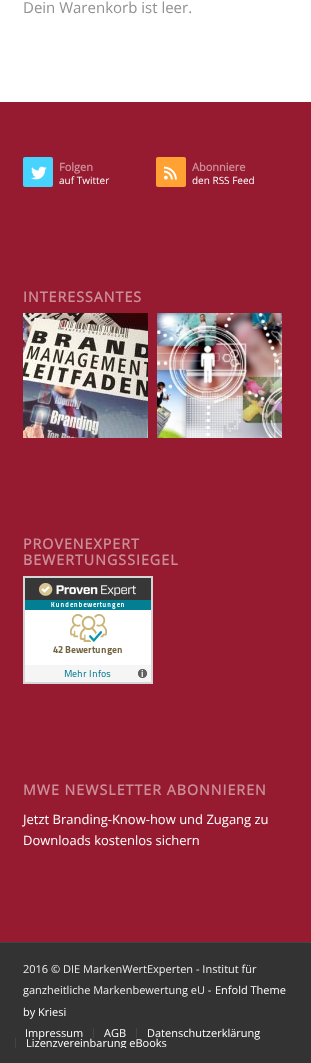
<svg xmlns="http://www.w3.org/2000/svg" width="311" height="1063" viewBox="0 0 311 1063">
  <defs>
    <clipPath id="clip1"><path d="M8 1022h265v26H8z"/></clipPath>
  </defs>
  <rect width="100%" height="100%" fill="#fff"/>
  <path d="M0 102h311v840H0z" fill="#971b30"/>
  <rect x="23" y="157" width="30" height="30" rx="2" fill="#46d4fe"/>
  <image x="31" y="166" width="16" height="14" href="img/1.png"/>
  <rect x="156" y="157" width="30" height="30" rx="2" fill="#ffa133"/>
  <image x="164" y="166" width="13" height="14" href="img/2.png"/>
  <image x="23" y="313" width="125" height="125" href="img/3.png"/>
  <image x="157" y="313" width="125" height="125" href="img/4.png"/>
  <image x="23" y="576" width="130" height="108" href="img/5.png"/>
  <path d="M0 943h311v120H0z" fill="#333"/>
  <path d="M0 942h311v1H0z" fill="#444"/>
  <path d="M93 1028h1v10H93z" fill="#444"/>
  <path d="M136 1028h1v10H136z" fill="#444"/>
  <path d="M15 1038h1v10H15z" fill="#444"/>
  <text x="23" y="13" font-family="Open Sans" font-size="15" fill="#919191">Dein Warenkorb ist leer.</text>
  <text x="59" y="171" font-family="Open Sans" font-size="11" font-weight="bold" fill="#cb8d98">Folgen</text>
  <text x="59" y="184" font-family="Open Sans" font-size="10" fill="#fff">auf Twitter</text>
  <text x="192" y="171" font-family="Open Sans" font-size="11" font-weight="bold" fill="#cb8d98">Abonniere</text>
  <text x="192" y="184" font-family="Open Sans" font-size="10" fill="#fff">den RSS Feed</text>
  <g font-family="Open Sans" font-size="14.25" font-weight="bold" letter-spacing="1" fill="#cb8d98">
    <text x="23" y="302">INTERESSANTES</text>
    <text x="23" y="549">PROVENEXPERT</text>
    <text x="23" y="565">BEWERTUNGSSIEGEL</text>
    <text x="23" y="795">MWE NEWSLETTER ABONNIEREN</text>
  </g>
  <g font-family="Open Sans" font-size="13" fill="#fff">
    <text x="23" y="824">Jetzt Branding-Know-how und Zugang zu</text>
    <text x="23" y="845">Downloads kostenlos sichern</text>
  </g>
  <g font-family="Open Sans" font-size="11" fill="#eee">
    <text x="23" y="973">2016 © DIE MarkenWertExperten - Institut für</text>
    <text x="23" y="994">ganzheitliche Markenbewertung eU -</text>
  </g>
  <g font-family="Open Sans" font-size="11" fill="#fff">
    <text x="215" y="994">Enfold Theme</text>
    <text x="23" y="1016">by Kriesi</text>
    <text x="25" y="1037">Impressum</text>
    <text x="104" y="1037">AGB</text>
    <text x="147" y="1037">Datenschutzerklärung</text>
  </g>
  <g clip-path="url(#clip1)">
    <text x="26" y="1047" font-family="Open Sans" font-size="11" fill="#fff">Lizenzvereinbarung eBooks</text>
  </g>
</svg>
